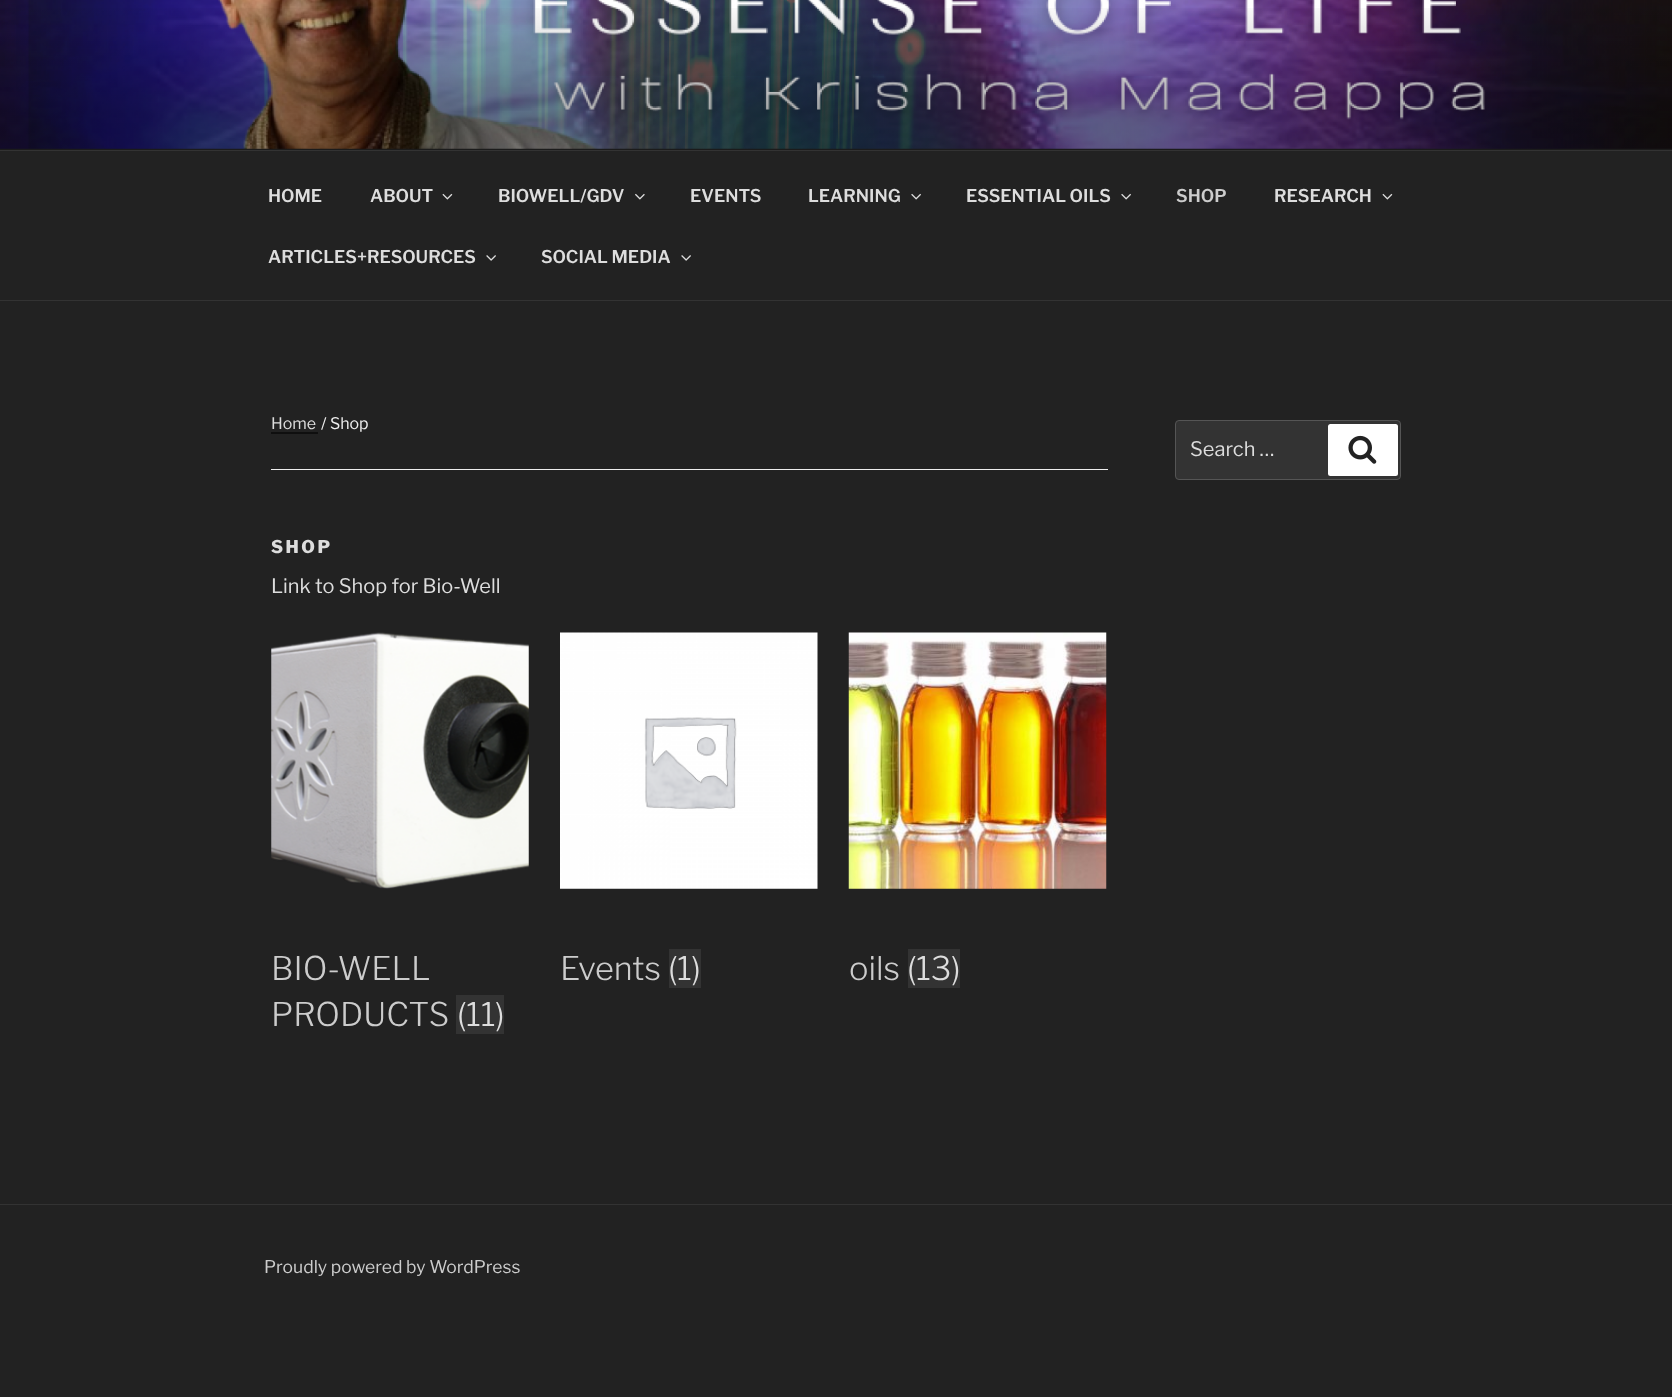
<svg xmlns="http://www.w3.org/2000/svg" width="1672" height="1397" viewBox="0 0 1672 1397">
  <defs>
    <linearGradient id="g1" gradientUnits="userSpaceOnUse" x1="836" y1="0" x2="836" y2="150"><stop offset="0" stop-color="#000" stop-opacity="0"/><stop offset="0.75" stop-color="#000" stop-opacity="0.3"/><stop offset="1" stop-color="#000" stop-opacity="0.3"/></linearGradient>
  </defs>
  <rect width="100%" height="100%" fill="#222"/>
  <path d="M0 148h1672v2H0z" fill="#262626"/>
  <image x="0" y="0" width="1672" height="149" href="img/1.png"/>
  <path d="M0 8h1672v142H0z" fill="url(#g1)"/>
  <path d="M0 150h1672v1H0z" fill="#333"/>
  <path d="M0 300h1672v1H0z" fill="#333"/>
  <image x="442" y="193" width="11" height="7" href="img/2.png"/>
  <image x="635" y="193" width="10" height="7" href="img/3.png"/>
  <image x="911" y="193" width="10" height="7" href="img/4.png"/>
  <image x="1121" y="193" width="10" height="7" href="img/4.png"/>
  <image x="1382" y="193" width="11" height="7" href="img/2.png"/>
  <image x="486" y="255" width="10" height="6" href="img/5.png"/>
  <image x="681" y="255" width="10" height="6" href="img/5.png"/>
  <path d="M271 469h837v1H271z" fill="#eee"/>
  <path d="M271 414V434H318V414V432H271Z" fill="#0f0f0f"/>
  <image x="271" y="632" width="258" height="257" href="img/6.png"/>
  <path d="M456 995h48v39H456z" fill="#333"/>
  <image x="560" y="632" width="258" height="257" href="img/7.png"/>
  <path d="M669 949h32v39H669z" fill="#333"/>
  <image x="848" y="632" width="259" height="257" href="img/8.png"/>
  <path d="M908 949h52v39H908z" fill="#333"/>
  <rect x="1175.5" y="420.5" width="225" height="59" rx="3.5" fill="#333" stroke="#555"/>
  <rect x="1328" y="424" width="70" height="52" rx="2.5" fill="#fff"/>
  <image x="1348" y="435" width="29" height="29" href="img/9.png"/>
  <path d="M0 1204h1672v1H0z" fill="#333"/>
  <g font-family="Libre Franklin" font-size="17.5" font-weight="600" fill="#ddd">
    <text x="268" y="202">HOME</text>
    <text x="370" y="202">ABOUT</text>
    <text x="498" y="202">BIOWELL/GDV</text>
    <text x="690" y="202">EVENTS</text>
    <text x="808" y="202">LEARNING</text>
    <text x="966" y="202">ESSENTIAL OILS</text>
  </g>
  <text x="1176" y="202" font-family="Libre Franklin" font-size="17.5" font-weight="600" fill="#ccc">SHOP</text>
  <g font-family="Libre Franklin" font-size="17.5" font-weight="600" fill="#ddd">
    <text x="1274" y="202">RESEARCH</text>
    <text x="268" y="263">ARTICLES+RESOURCES</text>
    <text x="541" y="263">SOCIAL MEDIA</text>
  </g>
  <text x="271" y="429" font-family="Libre Franklin" font-size="16" fill="#ddd">Home</text>
  <text x="321" y="429" font-family="Libre Franklin" font-size="16" fill="#eee">/ Shop</text>
  <text x="271" y="553" font-family="Libre Franklin" font-size="17.5" font-weight="800" letter-spacing="2.5" fill="#ddd">SHOP</text>
  <text x="271" y="593" font-family="Libre Franklin" font-size="20" fill="#ddd">Link to Shop for Bio-Well</text>
  <g font-family="Libre Franklin" font-size="32.5" font-weight="300" fill="#ccc">
    <text x="271" y="980">BIO-WELL</text>
    <text x="271" y="1026">PRODUCTS</text>
  </g>
  <text x="457" y="1026" font-family="Libre Franklin" font-size="32.5" font-weight="300" fill="#ddd">(11)</text>
  <text x="560" y="980" font-family="Libre Franklin" font-size="32.5" font-weight="300" fill="#ccc">Events</text>
  <text x="668" y="980" font-family="Libre Franklin" font-size="32.5" font-weight="300" fill="#ddd">(1)</text>
  <text x="849" y="980" font-family="Libre Franklin" font-size="32.5" font-weight="300" fill="#ccc">oils</text>
  <text x="907" y="980" font-family="Libre Franklin" font-size="32.5" font-weight="300" fill="#ddd">(13)</text>
  <text x="1190" y="456" font-family="Libre Franklin" font-size="20" fill="#ddd">Search …</text>
  <text x="264" y="1273" font-family="Libre Franklin" font-size="17.5" fill="#ccc">Proudly powered by WordPress</text>
</svg>
